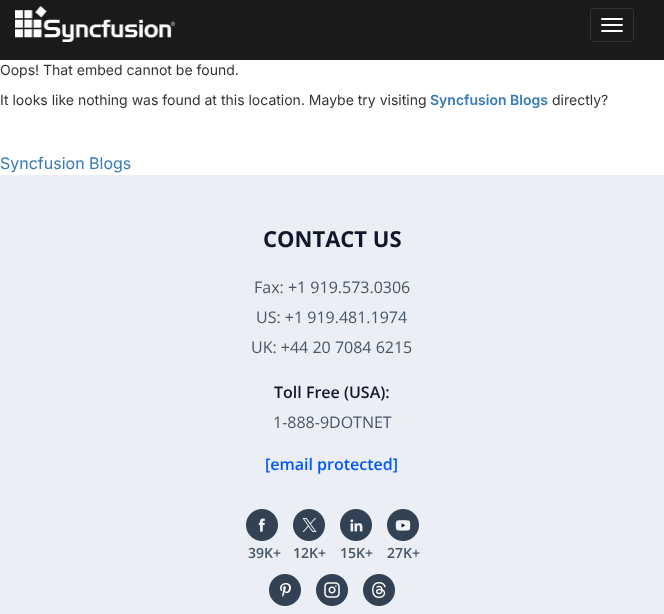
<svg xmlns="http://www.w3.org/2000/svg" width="664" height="614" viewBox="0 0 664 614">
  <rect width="100%" height="100%" fill="#fff"/>
  <path d="M0 0h664v60H0z" fill="#1a1a1a"/>
  <image x="15" y="6" width="160" height="36" href="img/1.png"/>
  <rect x="590.5" y="8.5" width="43" height="33" rx="3.5" fill="none" stroke="#333"/>
  <rect x="601" y="18" width="22" height="2" rx="1" fill="#fff"/>
  <rect x="601" y="24" width="22" height="2" rx="1" fill="#fff"/>
  <rect x="601" y="30" width="22" height="2" rx="1" fill="#fff"/>
  <path d="M0 175h664v439H0z" fill="#ebeff5"/>
  <image x="246" y="509" width="32" height="32" href="img/2.png"/>
  <image x="293" y="509" width="32" height="32" href="img/3.png"/>
  <image x="340" y="509" width="32" height="32" href="img/4.png"/>
  <image x="387" y="509" width="32" height="32" href="img/5.png"/>
  <image x="269" y="574" width="32" height="32" href="img/6.png"/>
  <image x="316" y="574" width="32" height="32" href="img/7.png"/>
  <image x="363" y="574" width="32" height="32" href="img/8.png"/>
  <g font-family="Inter" font-size="14" fill="#333">
    <text x="0" y="75">Oops! That embed cannot be found.</text>
    <text x="0" y="105">It looks like nothing was found at this location. Maybe try visiting</text>
  </g>
  <text x="430" y="105" font-family="Inter" font-size="14" font-weight="600" fill="#337ab7">Syncfusion Blogs</text>
  <text x="552" y="105" font-family="Inter" font-size="14" fill="#333">directly?</text>
  <text x="0" y="169" font-family="Inter" font-size="16" fill="#337ab7">Syncfusion Blogs</text>
  <text x="263" y="247" font-family="Open Sans" font-size="22" font-weight="bold" fill="#0f172a">CONTACT US</text>
  <g font-family="Open Sans" font-size="16" fill="#475569">
    <text x="254" y="293">Fax: +1 919.573.0306</text>
    <text x="256" y="323">US: +1 919.481.1974</text>
    <text x="251" y="353">UK: +44 20 7084 6215</text>
  </g>
  <text x="274" y="398" font-family="Open Sans" font-size="16" font-weight="600" fill="#0f172a">Toll Free (USA):</text>
  <text x="273" y="428" font-family="Open Sans" font-size="16" fill="#475569">1-888-9DOTNET</text>
  <text x="265" y="470" font-family="Open Sans" font-size="16" font-weight="600" fill="#0057ff">[email protected]</text>
  <g font-family="Open Sans" font-size="14" font-weight="600" fill="#475569">
    <text x="248" y="558">39K+</text>
    <text x="293" y="558">12K+</text>
    <text x="340" y="558">15K+</text>
    <text x="387" y="558">27K+</text>
  </g>
</svg>
